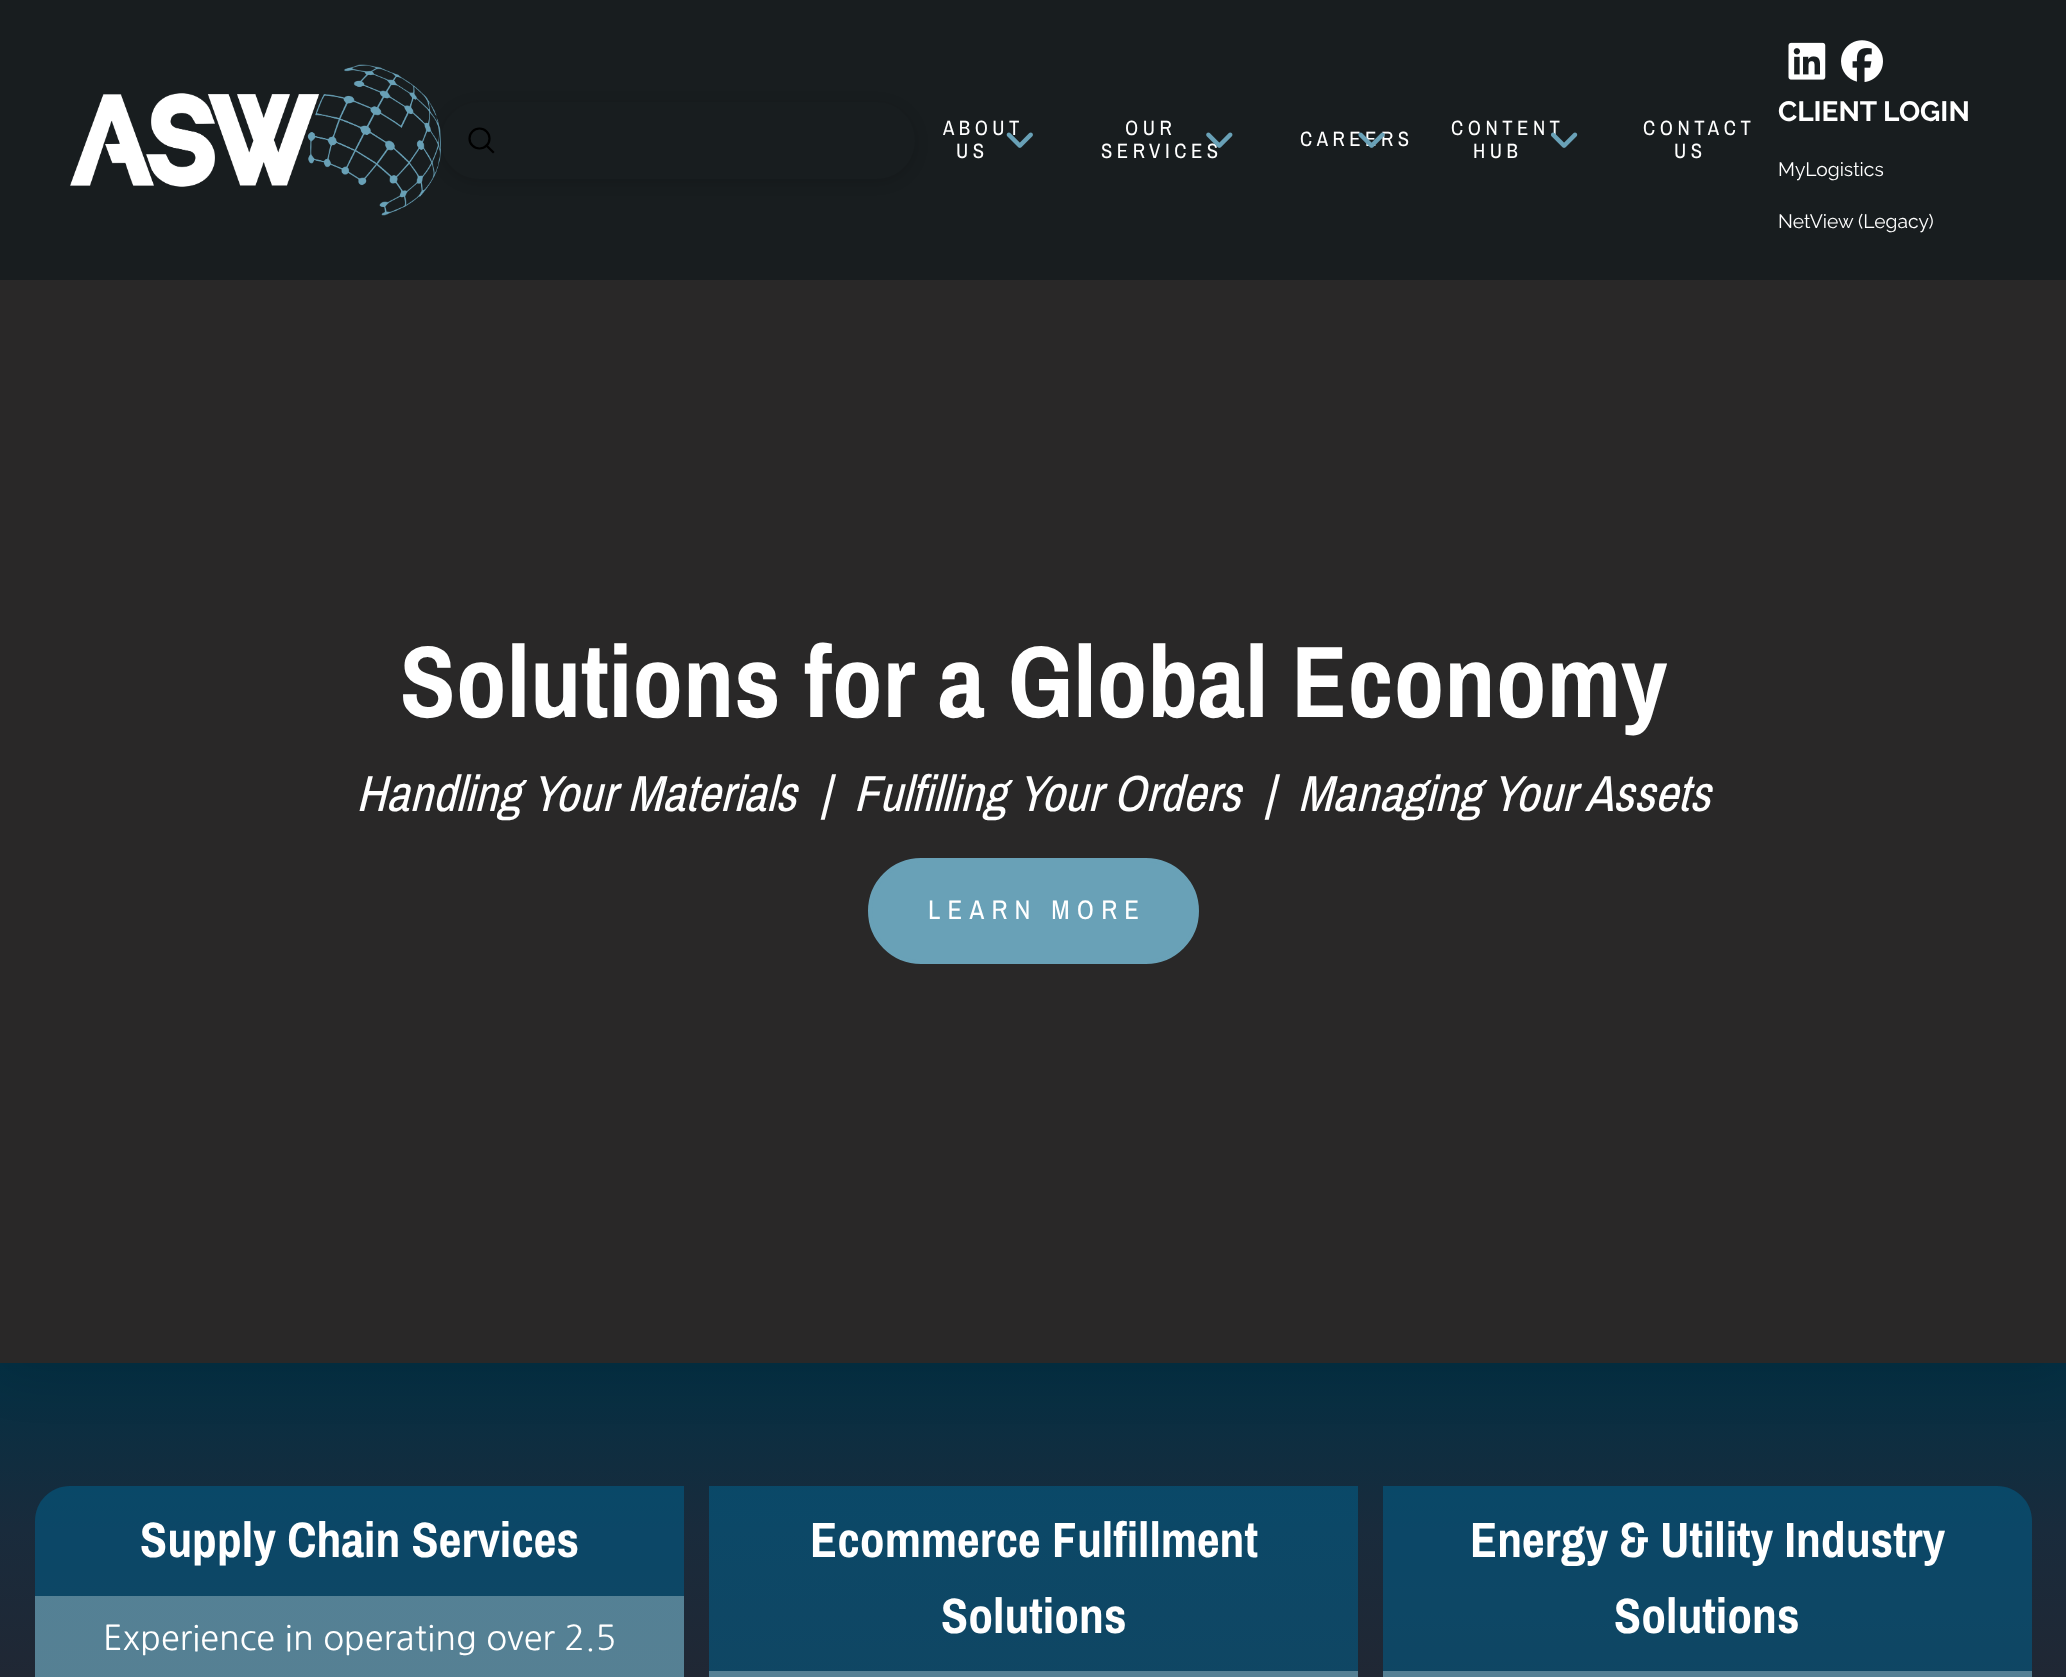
<svg xmlns="http://www.w3.org/2000/svg" width="2066" height="1677" viewBox="0 0 2066 1677">
  <defs>
    <linearGradient id="g1" gradientUnits="userSpaceOnUse" x1="1033" y1="1363" x2="1033" y2="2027"><stop offset="0" stop-color="#043044"/><stop offset="0.25" stop-color="#192b3c"/><stop offset="0.5" stop-color="#212733"/><stop offset="0.75" stop-color="#23242a"/><stop offset="1" stop-color="#222"/></linearGradient>
    <clipPath id="clip1"><path d="M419 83H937V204H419ZM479.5 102H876.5C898 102 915 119 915 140.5C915 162 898 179 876.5 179H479.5C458 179 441 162 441 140.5C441 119 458 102 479.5 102Z" clip-rule="evenodd"/></clipPath>
    <linearGradient id="g2" gradientUnits="userSpaceOnUse" x1="1033" y1="1363" x2="1033" y2="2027"><stop offset="0" stop-color="#034a6b"/><stop offset="0.25" stop-color="#0c4867"/><stop offset="0.5" stop-color="#104663"/><stop offset="0.75" stop-color="#11445f"/><stop offset="1" stop-color="#10445c"/></linearGradient>
    <linearGradient id="g3" gradientUnits="userSpaceOnUse" x1="1033" y1="1363" x2="1033" y2="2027"><stop offset="0" stop-color="#4e8298"/><stop offset="0.25" stop-color="#538196"/><stop offset="0.5" stop-color="#568093"/><stop offset="0.75" stop-color="#567f91"/><stop offset="1" stop-color="#567f8f"/></linearGradient>
  </defs>
  <rect width="100%" height="100%" fill="#fff"/>
  <path d="M0 1363h2066v314H0z" fill="url(#g1)"/>
  <path d="M0 4h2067v1363H0z" fill="#00000026" filter="blur(28px)"/>
  <path d="M0 0h2066v280H0z" fill="#181d1f"/>
  <image x="70" y="64" width="371" height="152" href="img/1.png"/>
  <g clip-path="url(#clip1)">
    <rect x="441" y="105" width="474" height="77" rx="38.5" fill="#00000026" filter="blur(7px)"/>
  </g>
  <circle cx="479.5" cy="138.5" r="10" fill="none" stroke="#000" stroke-width="2.2"/>
  <path d="M493 152L486.5 145.5" fill="none" stroke="#000" stroke-width="2.2" stroke-linecap="square"/>
  <image x="1788" y="42" width="38" height="38" href="img/6.png"/>
  <image x="1841" y="40" width="42" height="42" href="img/7.png"/>
  <path d="M0 280h2066v1083H0z" fill="#292828"/>
  <rect x="870" y="860" width="327" height="102" rx="51" fill="#69a1b7" stroke="#69a1b7" stroke-width="4"/>
  <path d="M709 1486h649v185H709z" fill="url(#g2)"/>
  <path d="M35 1596h649v81H35z" fill="url(#g3)"/>
  <path d="M70 1486H684V1596H35V1521C35 1501.5 50.5 1486 70 1486Z" fill="#025e898f"/>
  <path d="M709 1671h649v6H709z" fill="#558094"/>
  <path d="M1383 1486H1997C2016.5 1486 2032 1501.5 2032 1521V1671H1383Z" fill="#025e898f"/>
  <path d="M1383 1671h649v6H1383z" fill="#558094"/>
  <g font-family="Pragati Narrow" font-size="22.5" letter-spacing="4.5" fill="#fff">
    <text x="943" y="135">ABOUT</text>
    <text x="956" y="158">US</text>
  </g>
  <image x="1006" y="132" width="27" height="16" href="img/2.png"/>
  <g font-family="Pragati Narrow" font-size="22.5" letter-spacing="4.5" fill="#fff">
    <text x="1125" y="135">OUR</text>
    <text x="1101" y="158">SERVICES</text>
  </g>
  <image x="1206" y="132" width="27" height="16" href="img/3.png"/>
  <text x="1300" y="146" font-family="Pragati Narrow" font-size="22.5" letter-spacing="4.5" fill="#fff">CAREERS</text>
  <image x="1358" y="132" width="27" height="16" href="img/4.png"/>
  <g font-family="Pragati Narrow" font-size="22.5" letter-spacing="4.5" fill="#fff">
    <text x="1451" y="135">CONTENT</text>
    <text x="1473" y="158">HUB</text>
  </g>
  <image x="1551" y="132" width="27" height="16" href="img/5.png"/>
  <g font-family="Pragati Narrow" font-size="22.5" letter-spacing="4.5" fill="#fff">
    <text x="1643" y="135">CONTACT</text>
    <text x="1674" y="158">US</text>
  </g>
  <text x="1778" y="121" font-family="Raleway" font-size="28" font-weight="bold" fill="#fff">CLIENT LOGIN</text>
  <g font-family="Raleway" font-size="19.25" fill="#fff">
    <text x="1778" y="176">MyLogistics</text>
    <text x="1778" y="228">NetView (Legacy)</text>
  </g>
  <text x="400" y="717" font-family="Pragati Narrow" font-size="110.75" font-weight="bold" fill="#fff">Solutions for a Global Economy</text>
  <text x="356" y="811" font-family="Pragati Narrow" font-size="55.3" font-style="italic" fill="#fff" xml:space="preserve">Handling Your Materials  |  Fulfilling Your Orders  |  Managing Your Assets</text>
  <text x="928" y="919" font-family="Pragati Narrow" font-size="29.25" letter-spacing="7.25" fill="#fff">LEARN MORE</text>
  <text x="140" y="1557" font-family="Pragati Narrow" font-size="54" font-weight="bold" fill="#fff">Supply Chain Services</text>
  <text x="103" y="1650" font-family="NanumGothic" font-size="34.25" fill="#fff">Experience in operating over 2.5</text>
  <g font-family="Pragati Narrow" font-size="54" font-weight="bold" fill="#fff">
    <text x="810" y="1557">Ecommerce Fulfillment</text>
    <text x="941" y="1633">Solutions</text>
    <text x="1470" y="1557">Energy &amp; Utility Industry</text>
    <text x="1614" y="1633">Solutions</text>
  </g>
</svg>
